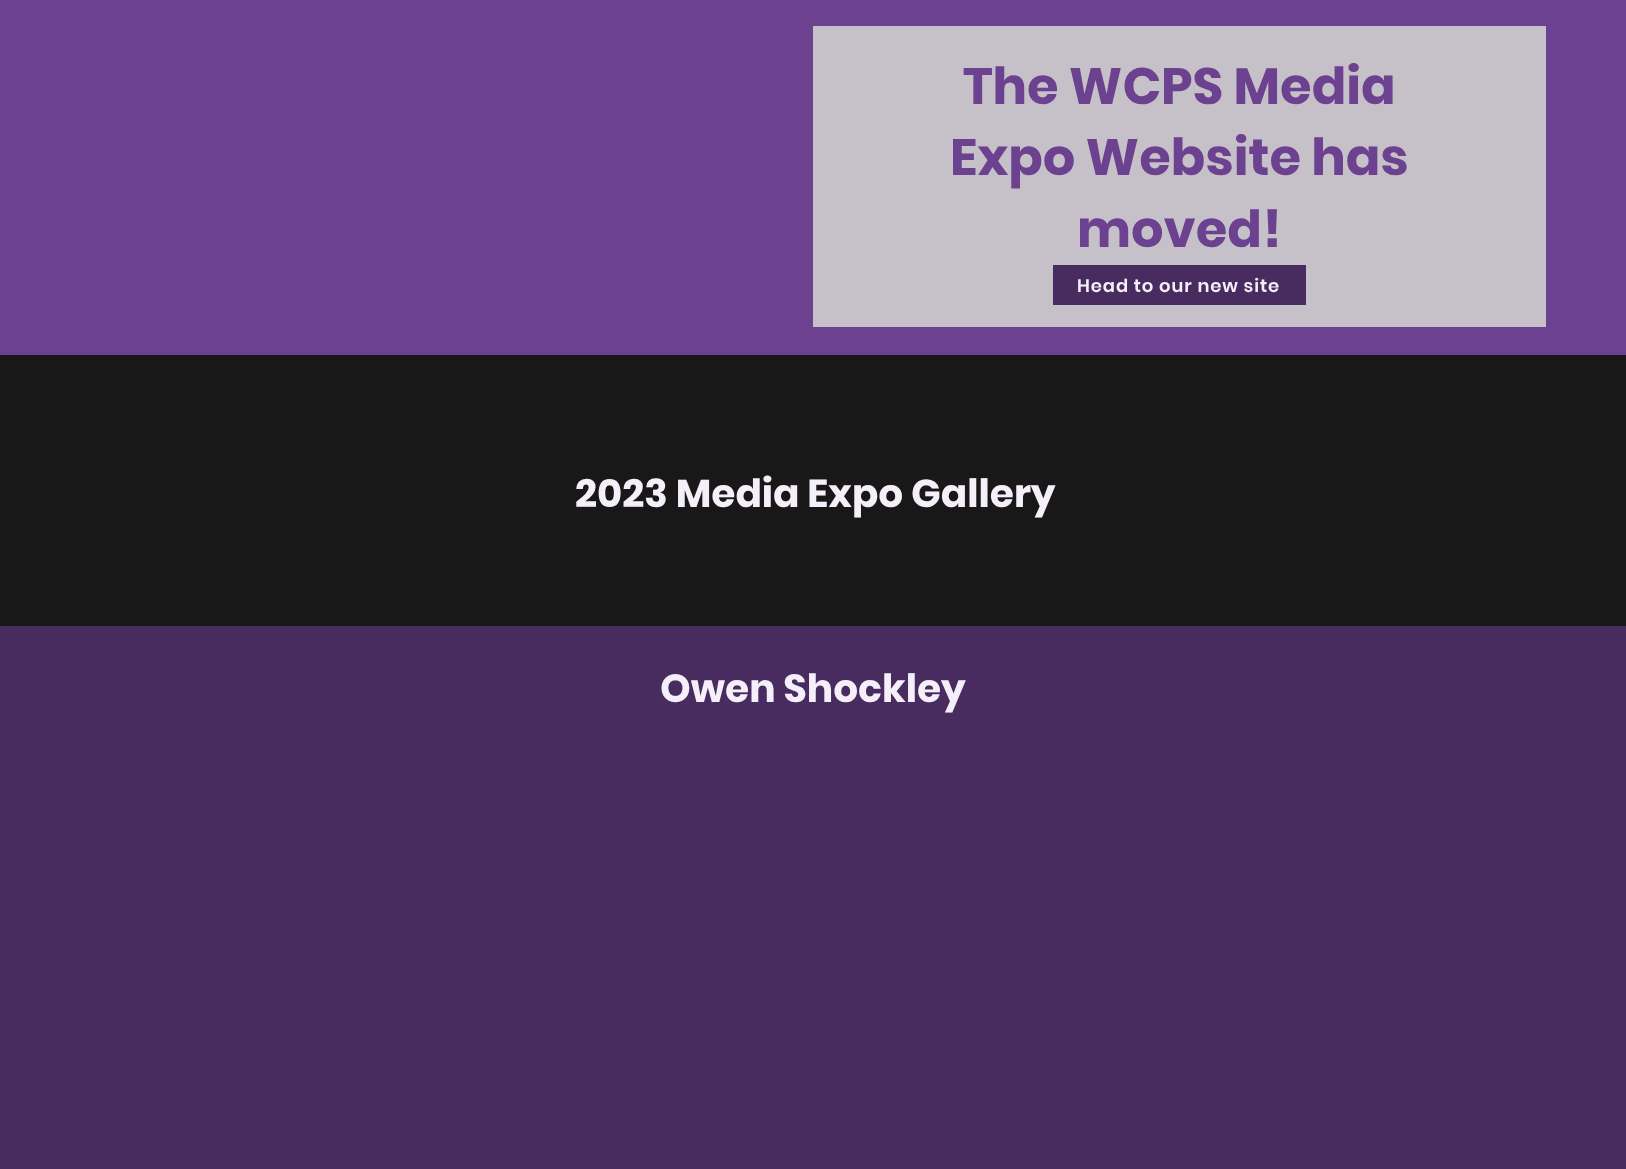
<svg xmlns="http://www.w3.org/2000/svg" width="1626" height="1169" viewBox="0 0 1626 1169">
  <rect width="100%" height="100%" fill="#482b5f"/>
  <path d="M0 0h1626v355H0z" fill="#6c418f"/>
  <path d="M813 26h733v301H813z" fill="#c6c1c8"/>
  <path d="M1053 265h253v40H1053z" fill="#482b5f"/>
  <path d="M0 355h1626v271H0z" fill="#181818"/>
  <g font-family="Poppins" font-size="51" font-weight="bold" fill="#6c418f">
    <text x="963" y="104">The WCPS Media</text>
    <text x="950" y="175">Expo Website has</text>
    <text x="1077" y="247">moved!</text>
  </g>
  <text x="1077" y="292" font-family="Poppins" font-size="18" font-weight="600" letter-spacing="0.9" fill="#f5effa">Head to our new site</text>
  <g font-family="Poppins" font-size="39" font-weight="bold" fill="#f5effa">
    <text x="575" y="507">2023 Media Expo Gallery</text>
    <text x="660" y="702">Owen Shockley</text>
  </g>
</svg>
